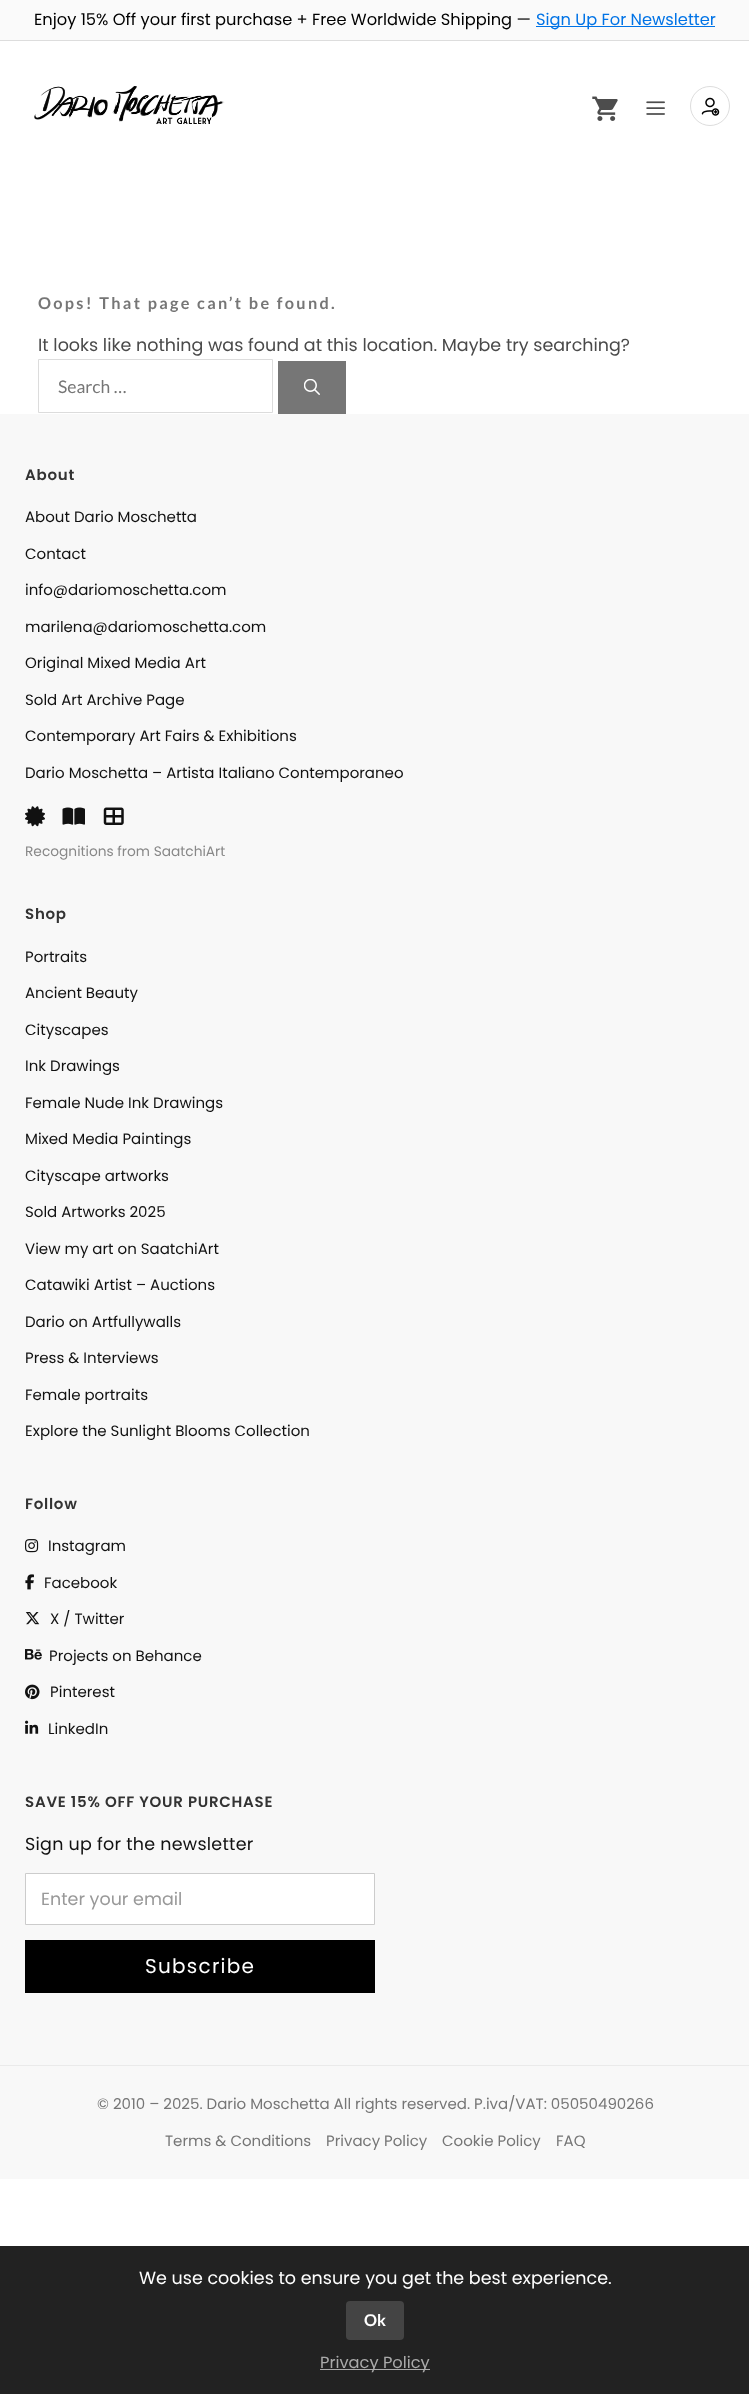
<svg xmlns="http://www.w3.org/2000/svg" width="749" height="2394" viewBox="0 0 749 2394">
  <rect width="100%" height="100%" fill="#fff"/>
  <path d="M0 0h749v40H0z" fill="#fafafa"/>
  <path d="M0 40h749v1H0z" fill="#ddd"/>
  <path d="M536 26h179v1H536z" fill="#0073e6"/>
  <image x="34" y="86" width="191" height="39" href="img/1.png"/>
  <image x="592" y="96" width="26" height="25" href="img/2.png"/>
  <image x="646" y="101" width="19" height="14" href="img/3.png"/>
  <circle cx="710" cy="106" r="19.5" fill="none" stroke="#ddd"/>
  <image x="701" y="97" width="19" height="19" href="img/4.png"/>
  <path d="M38.5 359.5h234v53H38.5z" fill="none" stroke="#dcdcdc"/>
  <path d="M278 361h68v53H278z" fill="#767676"/>
  <image x="304" y="379" width="16" height="16" href="img/5.png"/>
  <path d="M0 414h749v1651H0z" fill="#f8f8f8"/>
  <image x="25" y="806" width="20" height="21" href="img/6.png"/>
  <image x="62" y="807" width="23" height="18" href="img/7.png"/>
  <image x="103" y="807" width="21" height="18" href="img/8.png"/>
  <image x="25" y="1539" width="14" height="14" href="img/9.png"/>
  <image x="25" y="1574" width="9" height="16" href="img/10.png"/>
  <image x="25" y="1612" width="15" height="13" href="img/11.png"/>
  <image x="25" y="1649" width="17" height="11" href="img/12.png"/>
  <image x="25" y="1684" width="15" height="16" href="img/13.png"/>
  <image x="25" y="1720" width="14" height="14" href="img/14.png"/>
  <path d="M25.5 1873.5h349v51H25.5z" fill="#fff" stroke="#ccc"/>
  <path d="M25 1940h350v53H25z" fill="#000"/>
  <path d="M0 2066h749v113H0z" fill="#f8f8f8"/>
  <path d="M0 2065h749v1H0z" fill="#eaeaea"/>
  <path d="M0 2246h749v148H0z" fill="#222"/>
  <rect x="346" y="2301" width="58" height="39" rx="4" fill="#444"/>
  <path d="M320 2369h110v1H320z" fill="#aaa"/>
  <text x="34" y="25" font-family="Poppins" font-size="16.25" fill="#000">Enjoy 15% Off your first purchase + Free Worldwide Shipping —</text>
  <text x="536" y="25" font-family="Poppins" font-size="16.25" fill="#0073e6">Sign Up For Newsletter</text>
  <text x="38" y="309" font-family="Lato" font-size="16.25" font-weight="bold" letter-spacing="2.3" fill="#767676">Oops! That page can’t be found.</text>
  <text x="38" y="351" font-family="Poppins" font-size="17.5" fill="#4a4a4a">It looks like nothing was found at this location. Maybe try searching?</text>
  <text x="58" y="393" font-family="Lato" font-size="17.5" fill="#767676">Search …</text>
  <text x="25" y="480" font-family="Poppins" font-size="15" font-weight="600" letter-spacing="0.75" fill="#333">About</text>
  <g font-family="Poppins" font-size="15" fill="#111">
    <text x="25" y="522">About Dario Moschetta</text>
    <text x="25" y="559">Contact</text>
    <text x="25" y="595">info@dariomoschetta.com</text>
    <text x="25" y="632">marilena@dariomoschetta.com</text>
    <text x="25" y="668">Original Mixed Media Art</text>
    <text x="25" y="705">Sold Art Archive Page</text>
    <text x="25" y="741">Contemporary Art Fairs &amp; Exhibitions</text>
    <text x="25" y="778">Dario Moschetta – Artista Italiano Contemporaneo</text>
  </g>
  <text x="25" y="856" font-family="Poppins" font-size="13.75" fill="#888">Recognitions from SaatchiArt</text>
  <text x="25" y="919" font-family="Poppins" font-size="15" font-weight="600" letter-spacing="0.75" fill="#333">Shop</text>
  <g font-family="Poppins" font-size="15" fill="#111">
    <text x="25" y="962">Portraits</text>
    <text x="25" y="998">Ancient Beauty</text>
    <text x="25" y="1035">Cityscapes</text>
    <text x="25" y="1071">Ink Drawings</text>
    <text x="25" y="1108">Female Nude Ink Drawings</text>
    <text x="25" y="1144">Mixed Media Paintings</text>
    <text x="25" y="1181">Cityscape artworks</text>
    <text x="25" y="1217">Sold Artworks 2025</text>
    <text x="25" y="1254">View my art on SaatchiArt</text>
    <text x="25" y="1290">Catawiki Artist – Auctions</text>
    <text x="25" y="1327">Dario on Artfullywalls</text>
    <text x="25" y="1363">Press &amp; Interviews</text>
    <text x="25" y="1400">Female portraits</text>
    <text x="25" y="1436">Explore the Sunlight Blooms Collection</text>
  </g>
  <text x="25" y="1509" font-family="Poppins" font-size="15" font-weight="600" letter-spacing="0.75" fill="#333">Follow</text>
  <g font-family="Poppins" font-size="15" fill="#111">
    <text x="48" y="1551">Instagram</text>
    <text x="44" y="1588">Facebook</text>
    <text x="50" y="1624">X / Twitter</text>
    <text x="49" y="1661">Projects on Behance</text>
    <text x="50" y="1697">Pinterest</text>
    <text x="48" y="1734">LinkedIn</text>
  </g>
  <text x="25" y="1807" font-family="Poppins" font-size="15" font-weight="600" letter-spacing="0.75" fill="#333">SAVE 15% OFF YOUR PURCHASE</text>
  <text x="25" y="1850" font-family="Poppins" font-size="17.5" letter-spacing="0.25" fill="#111">Sign up for the newsletter</text>
  <text x="41" y="1905" font-family="Poppins" font-size="17.5" fill="#999">Enter your email</text>
  <text x="145" y="1973" font-family="Poppins" font-size="20" letter-spacing="1.25" fill="#fff">Subscribe</text>
  <g font-family="Poppins" font-size="15" fill="#767676">
    <text x="97" y="2109">© 2010 – 2025. Dario Moschetta All rights reserved. P.iva/VAT: 05050490266</text>
    <text x="165" y="2146">Terms &amp; Conditions</text>
    <text x="326" y="2146">Privacy Policy</text>
    <text x="442" y="2146">Cookie Policy</text>
    <text x="556" y="2146">FAQ</text>
  </g>
  <text x="139" y="2284" font-family="Poppins" font-size="17.5" fill="#fff">We use cookies to ensure you get the best experience.</text>
  <text x="364" y="2326" font-family="Lato" font-size="16.25" font-weight="bold" fill="#fff">Ok</text>
  <text x="320" y="2368" font-family="Poppins" font-size="16.25" fill="#aaa">Privacy Policy</text>
</svg>
